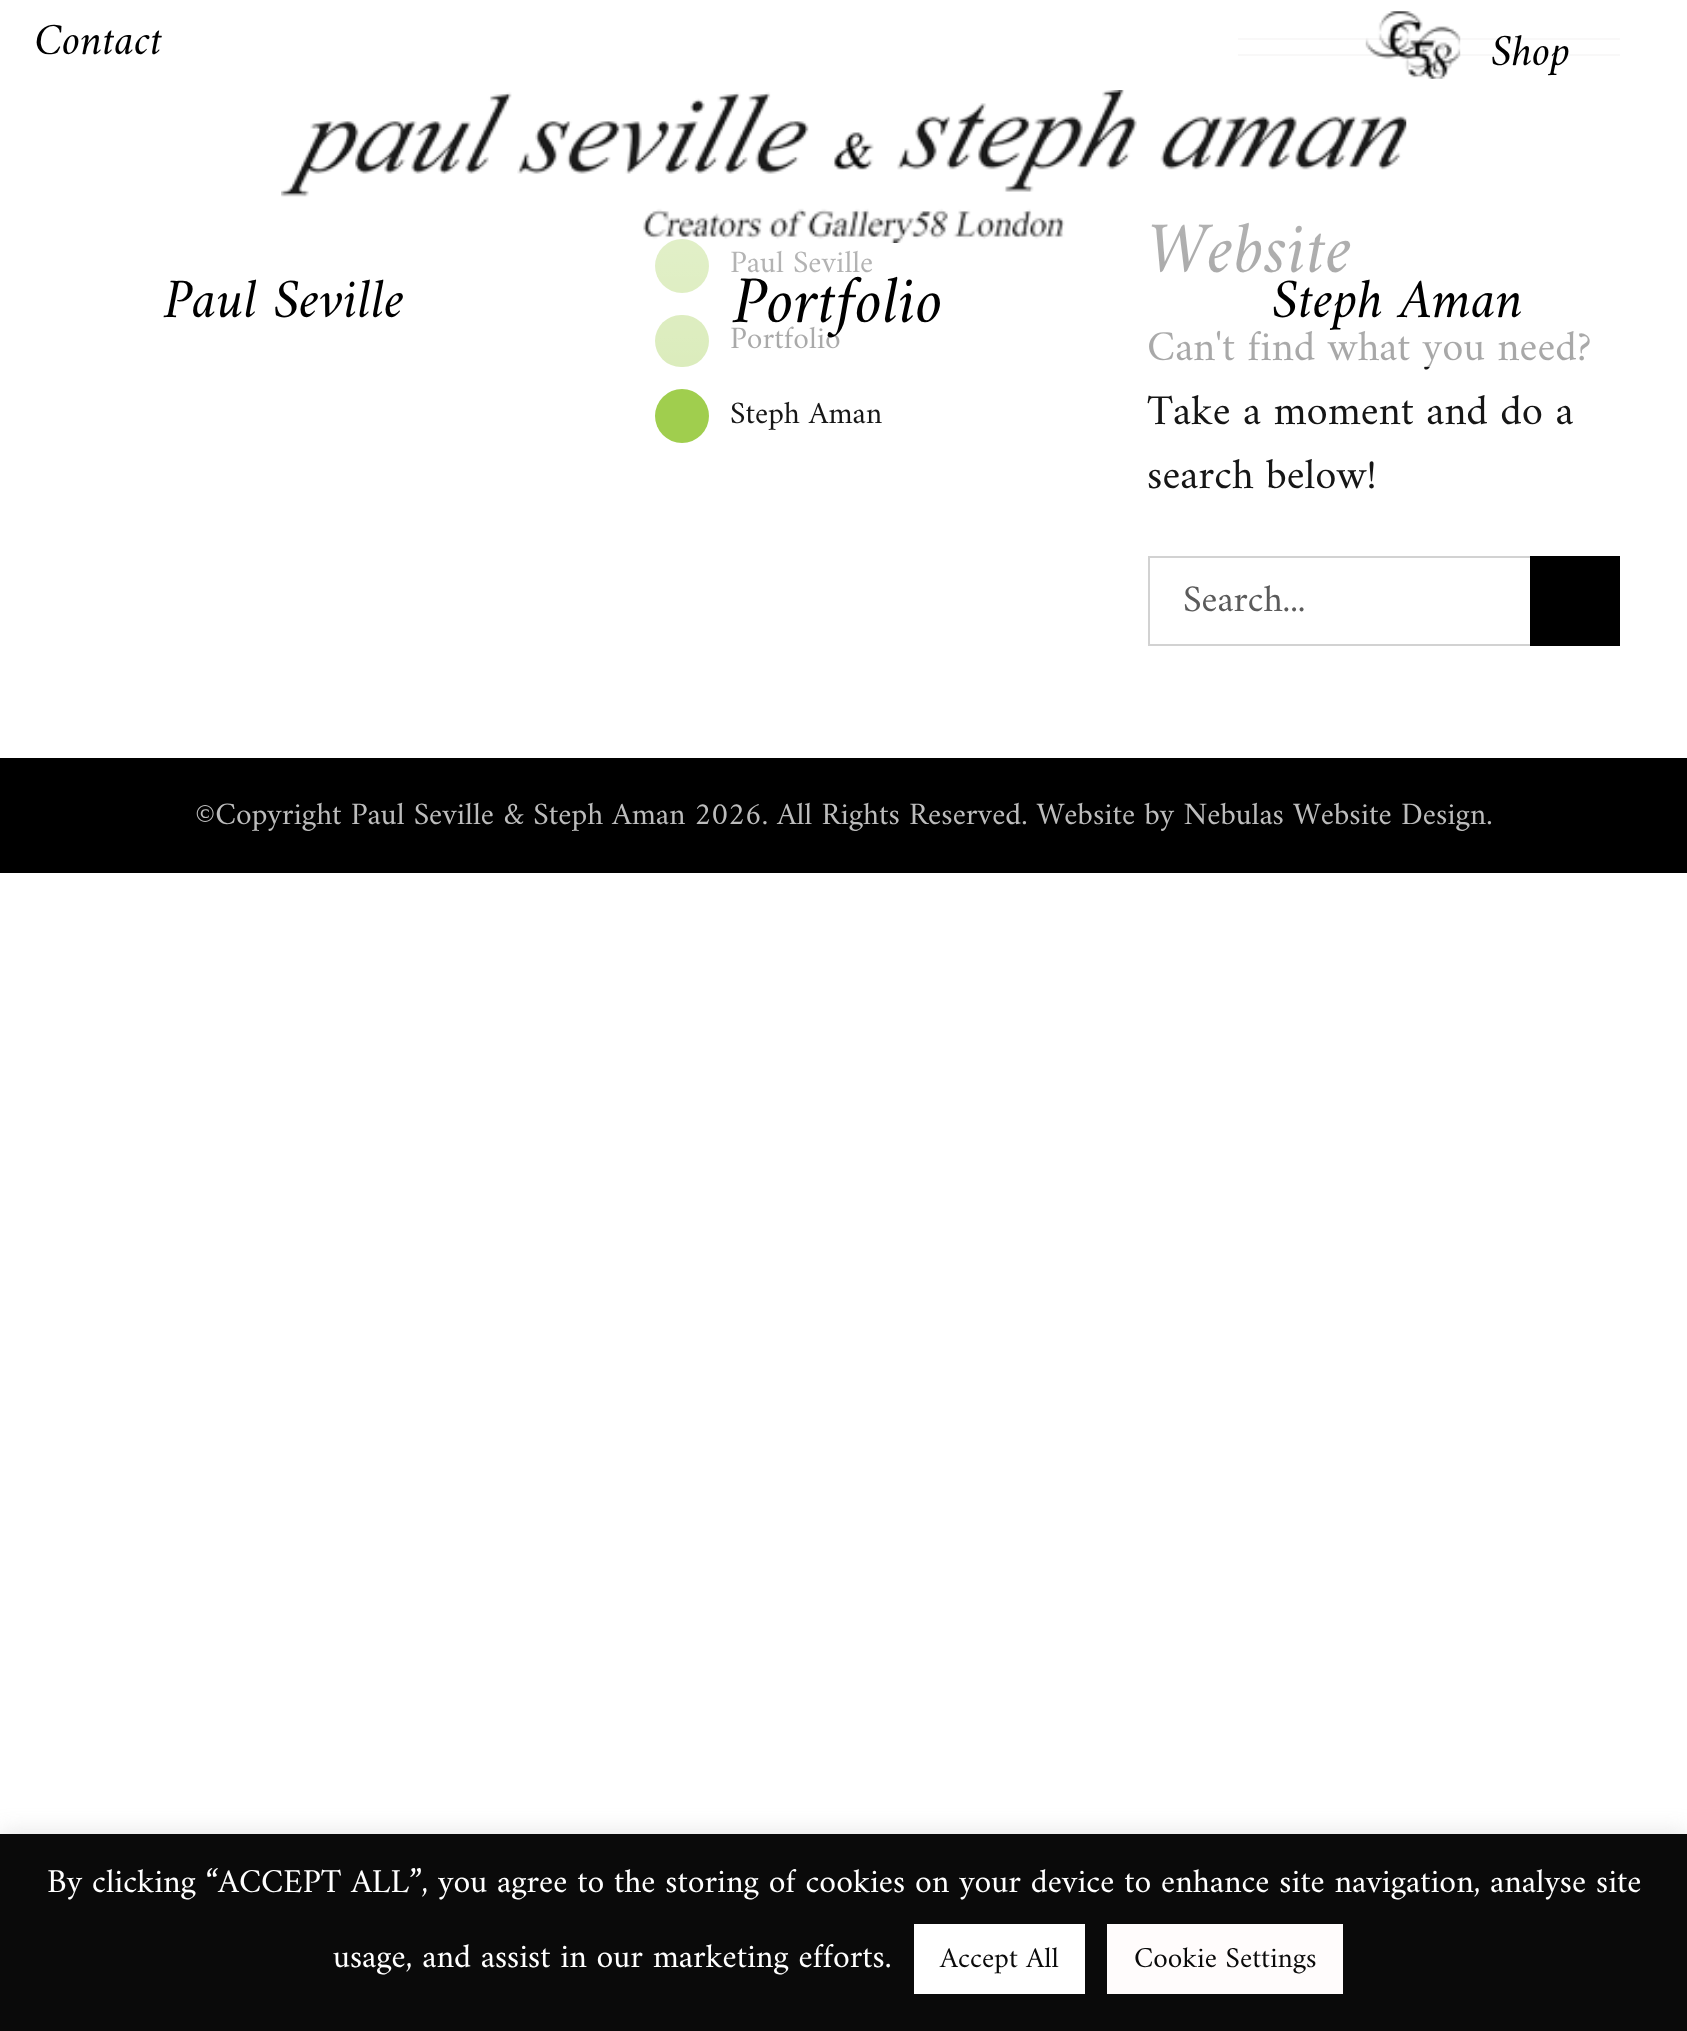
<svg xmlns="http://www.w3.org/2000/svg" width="1687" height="2031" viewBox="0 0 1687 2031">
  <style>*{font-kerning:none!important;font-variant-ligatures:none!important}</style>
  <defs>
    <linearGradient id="g1" gradientUnits="userSpaceOnUse" x1="844" y1="0" x2="844" y2="367"><stop offset="0" stop-color="#fff" stop-opacity="0.53"/><stop offset="1" stop-color="#fff" stop-opacity="0.06"/></linearGradient>
  </defs>
  <rect width="100%" height="100%" fill="#fff"/>
  <path d="M1238 38h382v2H1238z" fill="#e0dede"/>
  <path d="M1238 54h382v2H1238z" fill="#e0dede"/>
  <circle cx="682" cy="266" r="27" fill="#a0ce4e"/>
  <rect x="655" y="315" width="54" height="52" rx="26" fill="#a0ce4e"/>
  <circle cx="682" cy="416" r="27" fill="#a0ce4e"/>
  <path d="M1148 556h382v2H1148z" fill="#d2d2d2"/>
  <path d="M1148 644h382v2H1148z" fill="#d2d2d2"/>
  <path d="M1148 556h2v90H1148z" fill="#d2d2d2"/>
  <path d="M1530 556h90v90H1530z" fill="#000"/>
  <path d="M0 758h1687v115H0z" fill="#000"/>
  <path d="M0 1832h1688v198H0z" fill="#acabab4d" filter="blur(11px)"/>
  <path d="M0 1834h1687v197H0z" fill="#0a0a0a"/>
  <path d="M914 1924h171v70H914z" fill="#fff"/>
  <path d="M1107 1924h236v70H1107z" fill="#fffcfc"/>
  <text x="34" y="54" font-family="Amiri" font-size="45" font-style="italic" fill="#000">Contact</text>
  <text x="164" y="317" font-family="Amiri" font-size="56.25" font-style="italic" fill="#000">Paul Seville</text>
  <g font-family="Amiri" font-size="31.5" fill="#161616">
    <text x="730" y="272">Paul Seville</text>
    <text x="730" y="348">Portfolio</text>
    <text x="730" y="423">Steph Aman</text>
  </g>
  <text x="1147" y="272" font-family="Amiri" font-size="73.5" font-style="italic" fill="#000">Website</text>
  <text x="1147" y="360" font-family="Amiri" font-size="42.75" fill="#161616">Can't find what you need?</text>
  <path d="M655 38h965v329H655z" fill="#ffffff99"/>
  <path d="M655 38h965v329H655z" fill="url(#g1)"/>
  <text x="1272" y="317" font-family="Amiri" font-size="56.25" font-style="italic" fill="#000">Steph Aman</text>
  <text x="733" y="322" font-family="Amiri" font-size="67.5" font-style="italic" fill="#000">Portfolio</text>
  <image x="1365" y="11" width="96" height="68" href="img/1.png"/>
  <text x="1491" y="65" font-family="Amiri" font-size="45" font-style="italic" fill="#000">Shop</text>
  <image x="281" y="90" width="1126" height="153" href="img/2.png"/>
  <g font-family="Amiri" font-size="42.75" fill="#161616">
    <text x="1147" y="424">Take a moment and do a</text>
    <text x="1147" y="488">search below!</text>
  </g>
  <text x="1183" y="611" font-family="Amiri" font-size="38" fill="#5b5b5b">Search...</text>
  <text x="195" y="824" font-family="Amiri" font-size="31.5" fill="#bcbcbc">©Copyright Paul Seville &amp; Steph Aman 2026. All Rights Reserved. Website by Nebulas Website Design.</text>
  <g font-family="Amiri" font-size="33.75" fill="#fff">
    <text x="47" y="1892">By clicking “ACCEPT ALL”, you agree to the storing of cookies on your device to enhance site navigation, analyse site</text>
    <text x="333" y="1967">usage, and assist in our marketing efforts.</text>
  </g>
  <g font-family="Amiri" font-size="29.25" fill="#0a0a0a">
    <text x="940" y="1967">Accept All</text>
    <text x="1134" y="1967">Cookie Settings</text>
  </g>
</svg>
